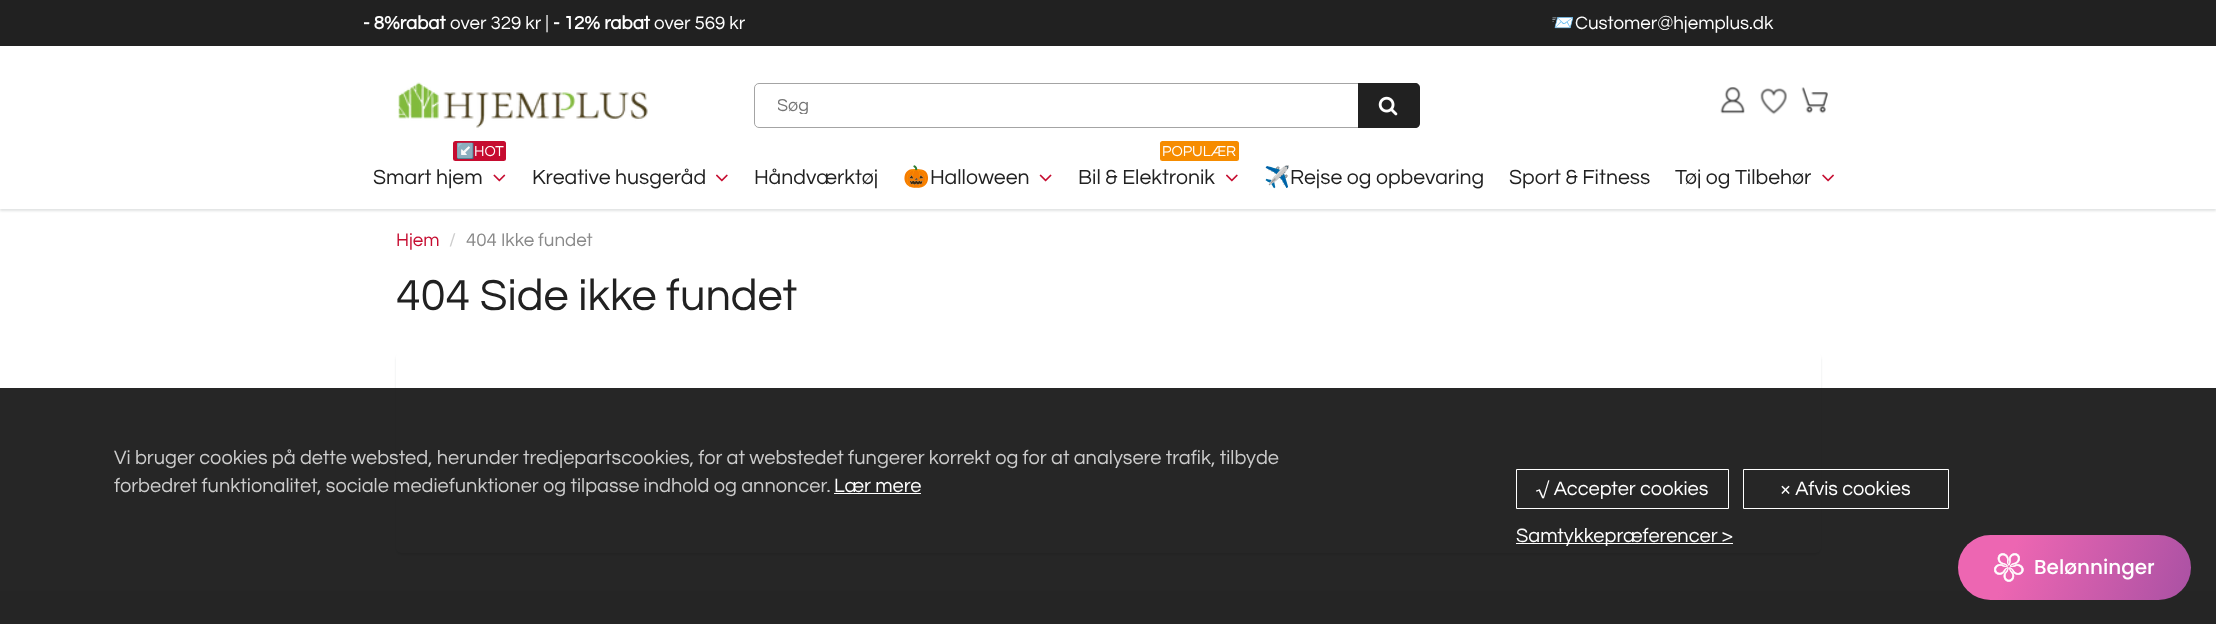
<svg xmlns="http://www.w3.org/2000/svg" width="2216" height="624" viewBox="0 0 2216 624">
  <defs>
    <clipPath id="clip1"><path d="M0 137H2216V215H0ZM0 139H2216V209H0Z" clip-rule="evenodd"/></clipPath>
    <linearGradient id="g1" gradientUnits="userSpaceOnUse" x1="1960" y1="527" x2="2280" y2="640"><stop offset="0.17" stop-color="#ed66b2"/><stop offset="1" stop-color="#86469c"/></linearGradient>
    <clipPath id="clip2"><path d="M778 96h592v18H778z"/></clipPath>
  </defs>
  <rect width="100%" height="100%" fill="#fff"/>
  <path d="M0 0h2216v46H0z" fill="#212121"/>
  <image x="398" y="82" width="250" height="46" href="img/1.png"/>
  <rect x="754.5" y="83.5" width="665" height="44" rx="4.5" fill="none" stroke="#a4a4a4"/>
  <path d="M1358 83H1415C1418 83 1420 85 1420 88V123C1420 126 1418 128 1415 128H1358Z" fill="#212121"/>
  <image x="1378" y="96" width="20" height="20" href="img/2.png"/>
  <image x="1720" y="87" width="25" height="27" href="img/3.png"/>
  <image x="1760" y="88" width="27" height="27" href="img/4.png"/>
  <image x="1801" y="87" width="27" height="27" href="img/5.png"/>
  <g clip-path="url(#clip1)">
    <path d="M0 141h2216v70H0z" fill="#0b191c1f" filter="blur(1px)"/>
  </g>
  <rect x="453" y="141" width="53" height="20" rx="2.5" fill="#c60c30"/>
  <image x="493" y="174" width="13" height="8" href="img/6.png"/>
  <image x="716" y="174" width="12" height="8" href="img/7.png"/>
  <image x="1039" y="174" width="13" height="8" href="img/8.png"/>
  <rect x="1160" y="141" width="79" height="20" rx="2.5" fill="#f68c00"/>
  <image x="1226" y="174" width="12" height="8" href="img/7.png"/>
  <image x="1822" y="174" width="12" height="8" href="img/9.png"/>
  <rect x="396" y="354" width="1425" height="201" rx="6" fill="#0b191c1a" filter="blur(1px)"/>
  <rect x="396" y="351" width="1425" height="202" rx="6" fill="#fff"/>
  <path d="M0 591h2216v33H0z" fill="#f8f8f8"/>
  <path d="M0 388h2216v236H0z" fill="#000000d9"/>
  <path d="M834 493h87v1H834z" fill="#fff"/>
  <path d="M1516.5 469.5h212v39H1516.5z" fill="none" stroke="#fff"/>
  <path d="M1743.5 469.5h205v39H1743.5z" fill="none" stroke="#fff"/>
  <path d="M1516 543h217v1H1516z" fill="#fff"/>
  <rect x="1958" y="535" width="233" height="65" rx="32.5" fill="url(#g1)"/>
  <image x="1994" y="553" width="30" height="29" href="img/10.png"/>
  <text x="363" y="29" font-family="Questrial" font-size="18.75" font-weight="bold" fill="#fff">- 8%rabat</text>
  <text x="450" y="29" font-family="Questrial" font-size="18.75" fill="#fff">over 329 kr |</text>
  <text x="553" y="29" font-family="Questrial" font-size="18.75" font-weight="bold" fill="#fff">- 12% rabat</text>
  <text x="654" y="29" font-family="Questrial" font-size="18.75" fill="#fff">over 569 kr</text>
  <text x="1551" y="29" font-family="Noto Color Emoji" font-size="18.75" fill="#fff">📨</text>
  <text x="1575" y="29" font-family="Questrial" font-size="18.75" fill="#fff">Customer@hjemplus.dk</text>
  <g clip-path="url(#clip2)">
    <text x="777" y="111" font-family="Questrial" font-size="18" fill="#757575">Søg</text>
  </g>
  <text x="456" y="156" font-family="Noto Color Emoji" font-size="15" fill="#fff">↙️</text>
  <text x="474" y="156" font-family="Questrial" font-size="15" fill="#fff">HOT</text>
  <g font-family="Questrial" font-size="21.25" fill="#212121">
    <text x="373" y="184">Smart hjem</text>
    <text x="532" y="184">Kreative husgeråd</text>
    <text x="754" y="184">Håndværktøj</text>
  </g>
  <text x="903" y="184" font-family="Noto Color Emoji" font-size="21.25" fill="#212121">🎃</text>
  <text x="930" y="184" font-family="Questrial" font-size="21.25" fill="#212121">Halloween</text>
  <text x="1162" y="156" font-family="Questrial" font-size="15" fill="#fff">POPULÆR</text>
  <text x="1078" y="184" font-family="Questrial" font-size="21.25" fill="#212121">Bil &amp; Elektronik</text>
  <text x="1264" y="184" font-family="Noto Color Emoji" font-size="21.25" fill="#212121">✈️</text>
  <g font-family="Questrial" font-size="21.25" fill="#212121">
    <text x="1290" y="184">Rejse og opbevaring</text>
    <text x="1509" y="184">Sport &amp; Fitness</text>
    <text x="1675" y="184">Tøj og Tilbehør</text>
  </g>
  <text x="396" y="246" font-family="Questrial" font-size="18.75" fill="#c60c30">Hjem</text>
  <text x="449" y="246" font-family="Questrial" font-size="18.75" fill="#ccc">/</text>
  <text x="466" y="246" font-family="Questrial" font-size="18.75" fill="#898989">404 Ikke fundet</text>
  <text x="396" y="310" font-family="Questrial" font-size="45" fill="#212121">404 Side ikke fundet</text>
  <g font-family="Questrial" font-size="20" fill="#ccc">
    <text x="114" y="464">Vi bruger cookies på dette websted, herunder tredjepartscookies, for at webstedet fungerer korrekt og for at analysere trafik, tilbyde</text>
    <text x="114" y="492">forbedret funktionalitet, sociale mediefunktioner og tilpasse indhold og annoncer.</text>
  </g>
  <g font-family="Questrial" font-size="20" fill="#fff">
    <text x="834" y="492">Lær mere</text>
    <text x="1536" y="495">√ Accepter cookies</text>
    <text x="1780" y="495">× Afvis cookies</text>
    <text x="1516" y="542">Samtykkepræferencer &gt;</text>
  </g>
  <text x="2034" y="574" font-family="Poppins" font-size="20" font-weight="500" fill="#fff">Belønninger</text>
</svg>
